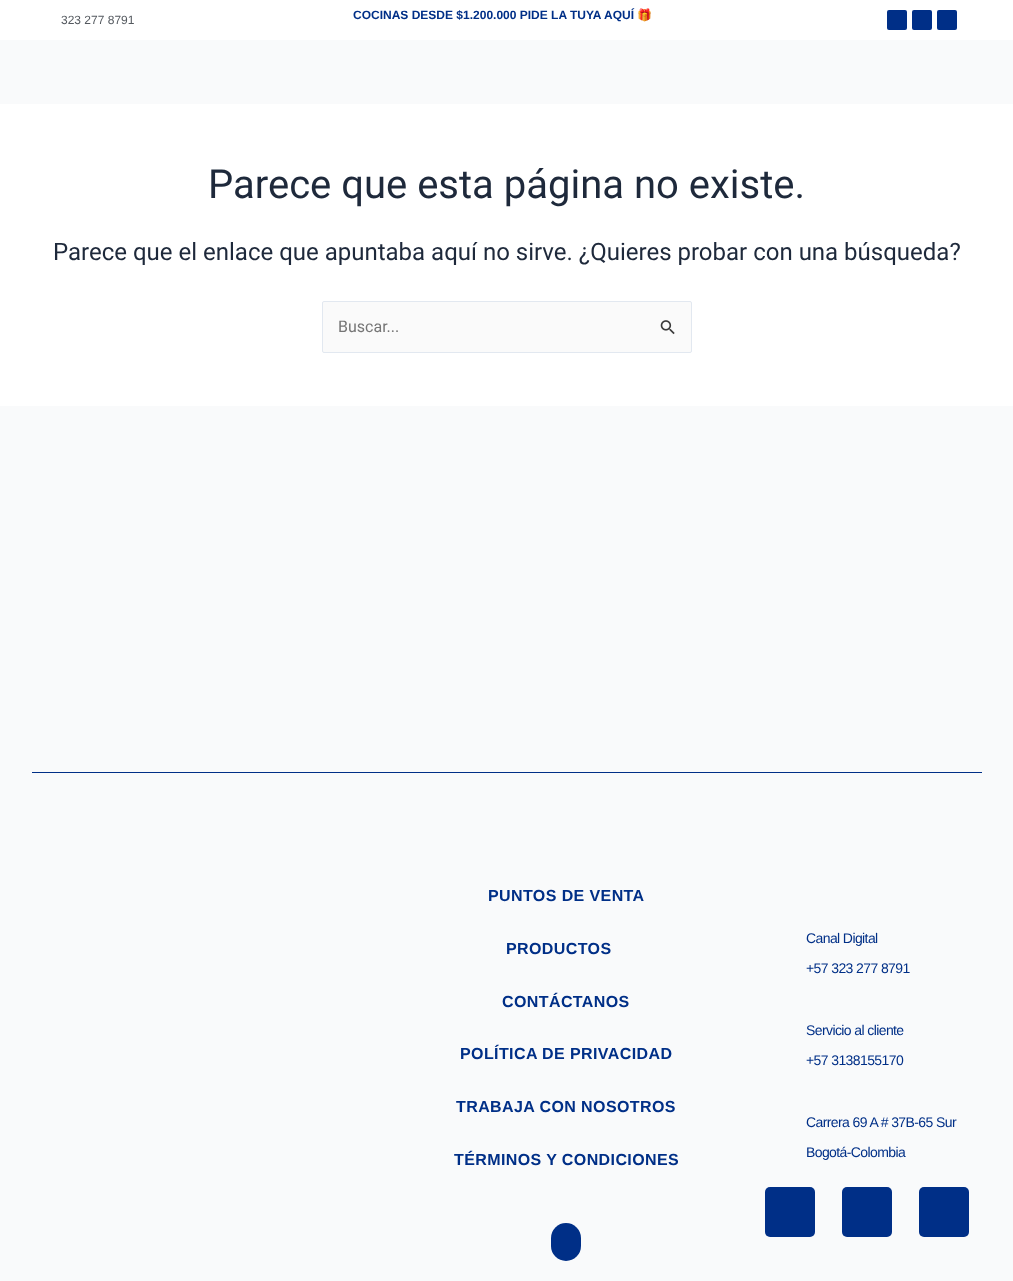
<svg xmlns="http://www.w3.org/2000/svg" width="1013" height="1281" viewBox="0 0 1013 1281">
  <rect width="100%" height="100%" fill="#f9fafb"/>
  <path d="M0 0h1013v40H0z" fill="#fff"/>
  <rect x="887" y="10" width="20" height="20" rx="2" fill="#002f87"/>
  <rect x="912" y="10" width="20" height="20" rx="2" fill="#002f87"/>
  <rect x="937" y="10" width="20" height="20" rx="2" fill="#002f87"/>
  <path d="M0 104h1013v302H0z" fill="#fff"/>
  <rect x="322.5" y="301.5" width="369" height="51" rx="1.5" fill="#fafafa" stroke="#e2e8f0"/>
  <image x="660" y="320" width="15" height="15" href="img/1.png"/>
  <path d="M32 772h950v1H32z" fill="#002f87"/>
  <rect x="551" y="1223" width="30" height="38" rx="15" fill="#002f87"/>
  <rect x="765" y="1187" width="50" height="50" rx="5" fill="#002f87"/>
  <rect x="842" y="1187" width="50" height="50" rx="5" fill="#002f87"/>
  <rect x="919" y="1187" width="50" height="50" rx="5" fill="#002f87"/>
  <text x="61" y="24" font-family="Liberation Sans" font-size="12" fill="#54595f">323 277 8791</text>
  <text x="353" y="19" font-family="Liberation Sans" font-size="12" font-weight="bold" fill="#002f87">COCINAS DESDE $1.200.000 PIDE LA TUYA AQUÍ</text>
  <text x="637" y="19" font-family="Noto Color Emoji" font-size="12" font-weight="bold" fill="#002f87">🎁</text>
  <text x="208" y="198" font-family="Roboto" font-size="40" fill="#1e293b">Parece que esta página no existe.</text>
  <text x="53" y="260" font-family="Roboto" font-size="24" fill="#1e293b">Parece que el enlace que apuntaba aquí no sirve. ¿Quieres probar con una búsqueda?</text>
  <text x="338" y="332" font-family="Roboto" font-size="16" fill="#757575">Buscar...</text>
  <g font-family="Liberation Sans" font-size="16" font-weight="bold" letter-spacing="0.4" fill="#002f87">
    <text x="488" y="901">PUNTOS DE VENTA</text>
    <text x="506" y="954">PRODUCTOS</text>
    <text x="502" y="1007">CONTÁCTANOS</text>
    <text x="460" y="1059">POLÍTICA DE PRIVACIDAD</text>
    <text x="456" y="1112">TRABAJA CON NOSOTROS</text>
    <text x="454" y="1165">TÉRMINOS Y CONDICIONES</text>
  </g>
  <g font-family="Liberation Sans" font-size="14" letter-spacing="-0.6" fill="#002f87">
    <text x="806" y="943">Canal Digital</text>
    <text x="806" y="973">+57 323 277 8791</text>
    <text x="806" y="1035">Servicio al cliente</text>
    <text x="806" y="1065">+57 3138155170</text>
    <text x="806" y="1127">Carrera 69 A # 37B-65 Sur</text>
    <text x="806" y="1157">Bogotá-Colombia</text>
  </g>
</svg>
